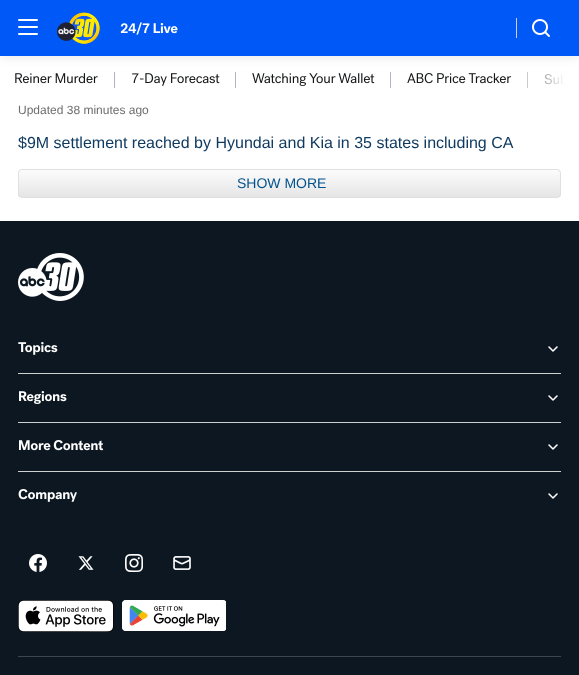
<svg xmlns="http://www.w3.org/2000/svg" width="579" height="675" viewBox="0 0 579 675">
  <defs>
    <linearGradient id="g1" gradientUnits="userSpaceOnUse" x1="565" y1="80" x2="512" y2="80"><stop offset="0" stop-color="#fff"/><stop offset="1" stop-color="#fff" stop-opacity="0"/></linearGradient>
    <clipPath id="clip1"><rect x="18" y="169" width="543" height="29" rx="4"/></clipPath>
    <linearGradient id="g2" gradientUnits="userSpaceOnUse" x1="290" y1="170" x2="290" y2="197"><stop offset="0" stop-color="#fcfcfc"/><stop offset="1" stop-color="#e5e5e5"/></linearGradient>
  </defs>
  <rect width="100%" height="100%" fill="#fff"/>
  <image x="15" y="73" width="83" height="11" href="img/4.png"/>
  <path d="M114 72h1v16H114z" fill="#b0b5be"/>
  <image x="132" y="73" width="88" height="13" href="img/5.png"/>
  <path d="M235 72h1v16H235z" fill="#b0b5be"/>
  <image x="252" y="73" width="123" height="13" href="img/6.png"/>
  <path d="M390 72h1v16H390z" fill="#b0b5be"/>
  <image x="407" y="73" width="105" height="11" href="img/7.png"/>
  <path d="M527 72h1v16H527z" fill="#b0b5be"/>
  <image x="544" y="74" width="21" height="11" href="img/8.png"/>
  <path d="M527 72h38v16H527z" fill="url(#g1)"/>
  <path d="M0 2h579v56H0z" fill="#00000014" filter="blur(5px)"/>
  <path d="M0 0h579v56H0z" fill="#0058f6"/>
  <rect x="18" y="26" width="20" height="2" rx="1" fill="#fff"/>
  <rect x="18" y="19" width="20" height="2" rx="1" fill="#fff"/>
  <rect x="18" y="33" width="20" height="2" rx="1" fill="#fff"/>
  <image x="57" y="12" width="43" height="32" href="img/1.png"/>
  <image x="120" y="22" width="58" height="13" href="img/2.png"/>
  <path d="M516 18h1v20H516z" fill="#cecfcf"/>
  <image x="532" y="19" width="18" height="18" href="img/3.png"/>
  <g clip-path="url(#clip1)">
    <path d="M18 170h543v27H18z" fill="url(#g2)"/>
  </g>
  <rect x="18.5" y="169.5" width="542" height="28" rx="3.5" fill="none" stroke="#e0e0e0"/>
  <path d="M0 221h579v454H0z" fill="#0d1721"/>
  <image x="18" y="253" width="66" height="48" href="img/9.png"/>
  <path d="M18 373h543v1H18z" fill="#cecfcf"/>
  <image x="18" y="342" width="40" height="13" href="img/10.png"/>
  <image x="548" y="346" width="10" height="6" href="img/11.png"/>
  <path d="M18 422h543v1H18z" fill="#cecfcf"/>
  <image x="19" y="391" width="48" height="13" href="img/12.png"/>
  <image x="548" y="395" width="10" height="6" href="img/11.png"/>
  <path d="M18 471h543v1H18z" fill="#cecfcf"/>
  <image x="19" y="440" width="85" height="11" href="img/13.png"/>
  <image x="548" y="444" width="10" height="6" href="img/11.png"/>
  <image x="18" y="489" width="59" height="13" href="img/14.png"/>
  <image x="548" y="493" width="10" height="6" href="img/11.png"/>
  <image x="29" y="554" width="18" height="18" href="img/15.png"/>
  <image x="78" y="556" width="16" height="14" href="img/16.png"/>
  <image x="125" y="554" width="18" height="18" href="img/17.png"/>
  <image x="173" y="556" width="18" height="14" href="img/18.png"/>
  <image x="18" y="600" width="96" height="32" href="img/19.png"/>
  <image x="122" y="600" width="104" height="31" href="img/20.png"/>
  <path d="M18 656h543v1H18z" fill="#3d454d"/>
  <text x="18" y="114" font-family="Liberation Sans" font-size="12" fill="#6e6e6e">Updated 38 minutes ago</text>
  <text x="18" y="148" font-family="Liberation Sans" font-size="16" fill="#103b61">$9M settlement reached by Hyundai and Kia in 35 states including CA</text>
  <text x="237" y="188" font-family="Liberation Sans" font-size="14" fill="#00528d">SHOW MORE</text>
</svg>
